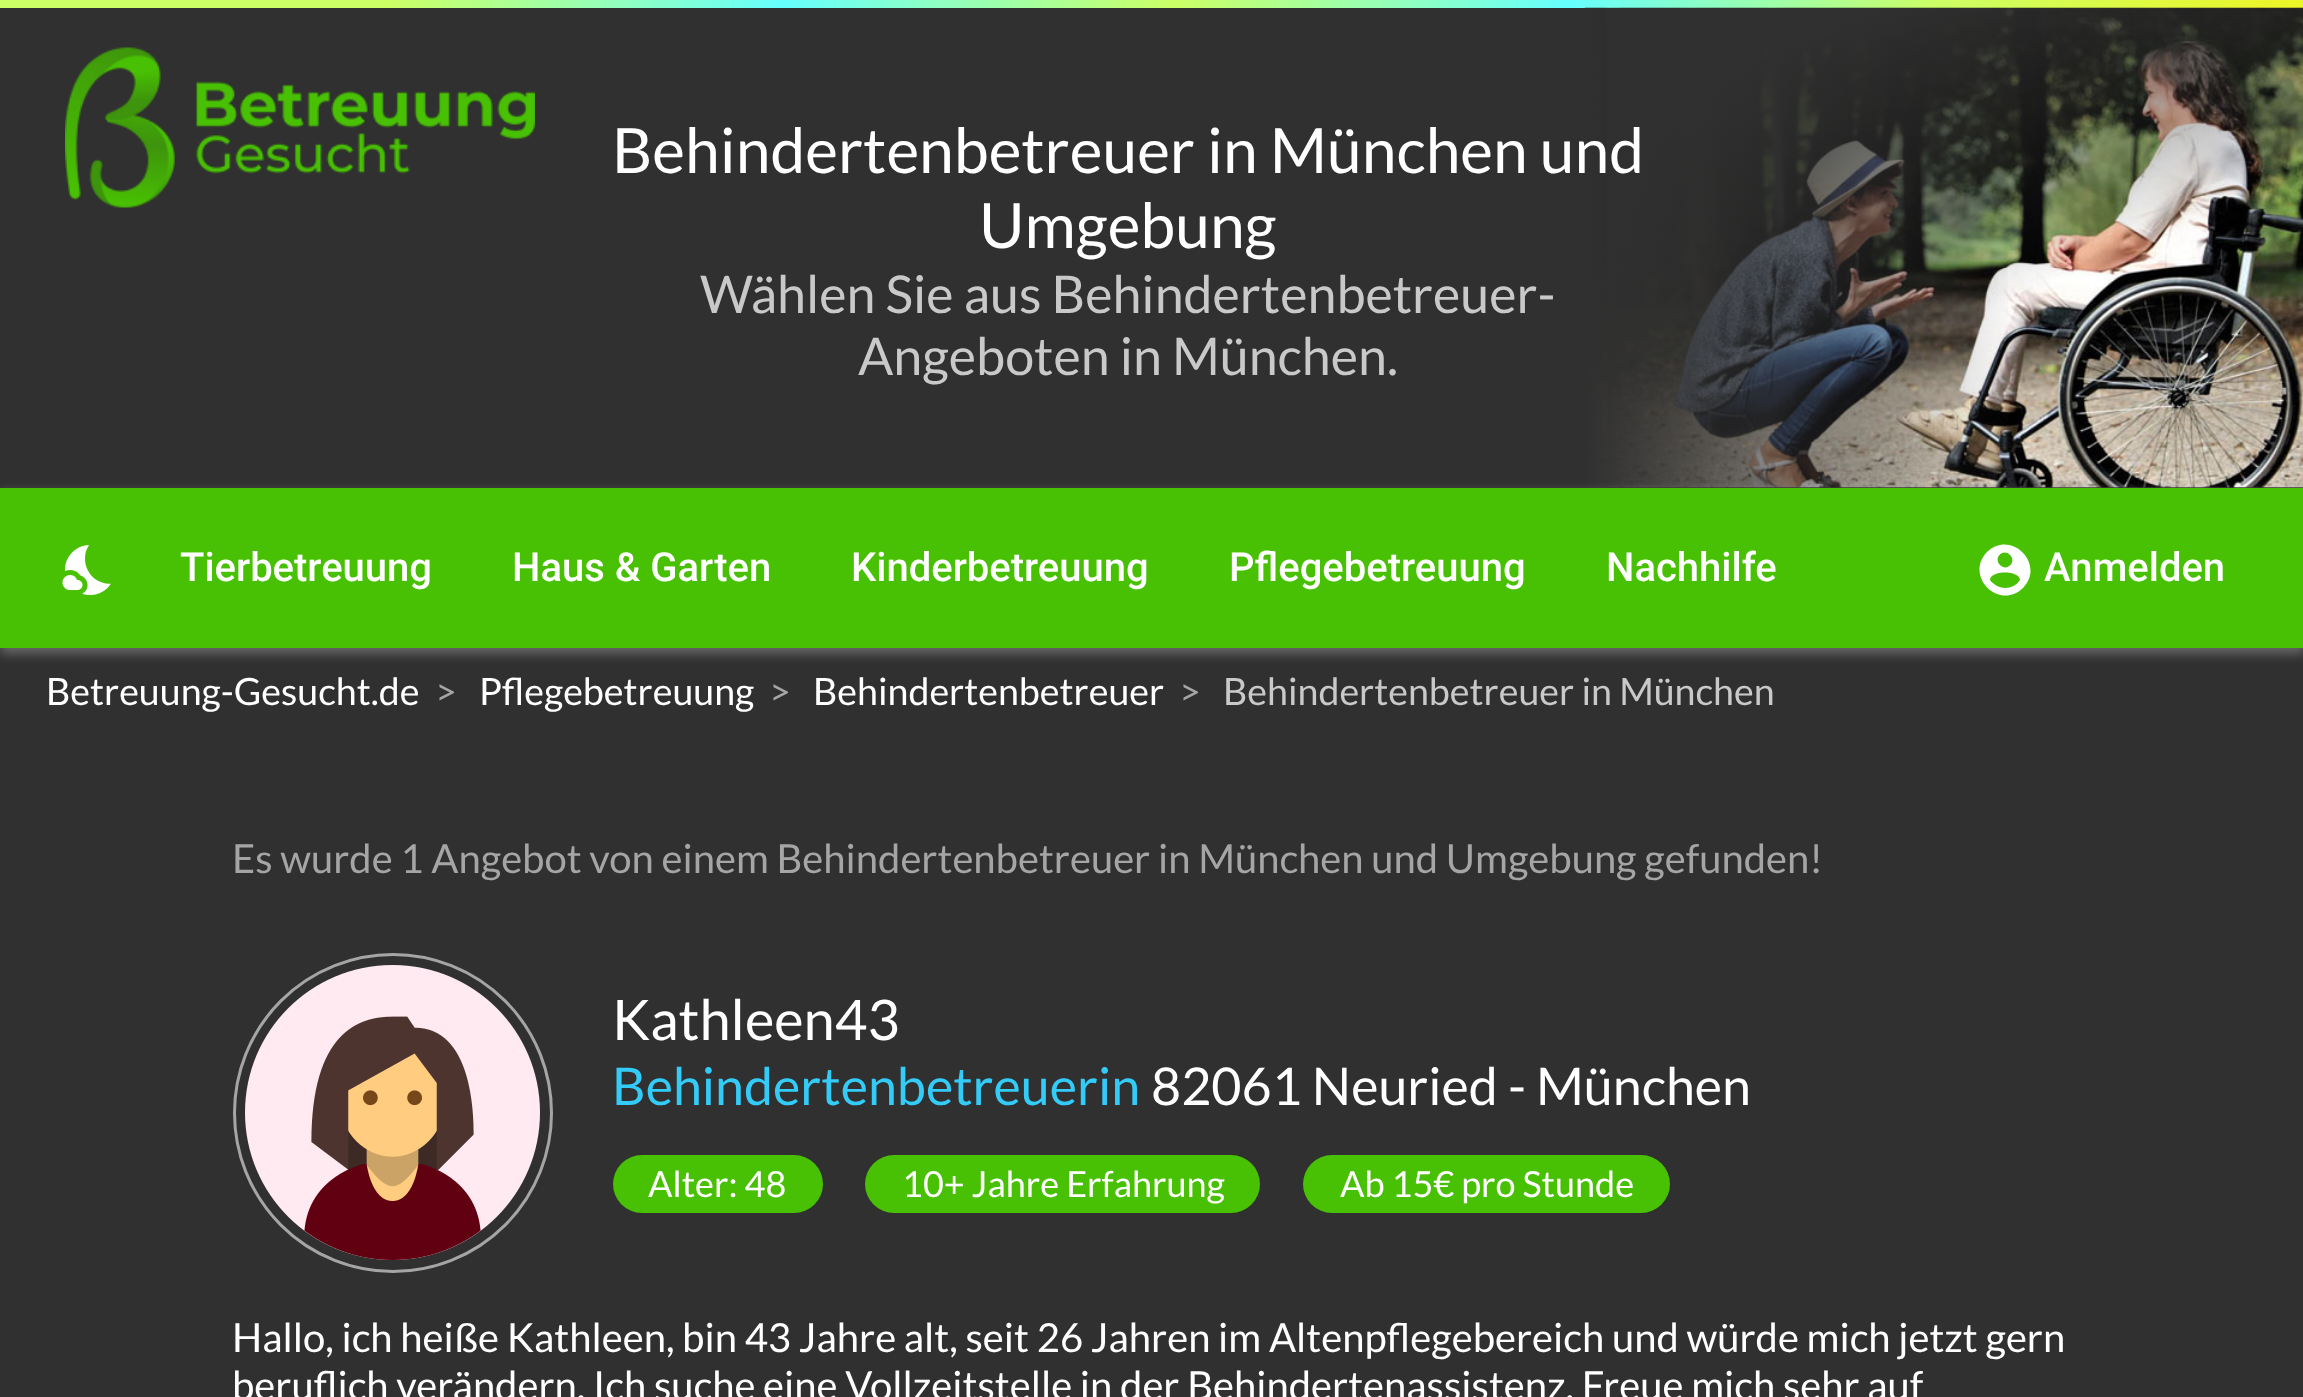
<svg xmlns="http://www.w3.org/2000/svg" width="2303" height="1397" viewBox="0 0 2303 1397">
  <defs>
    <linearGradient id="g1" gradientUnits="userSpaceOnUse" x1="0" y1="3.8" x2="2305" y2="3.7"><stop offset="0.17" stop-color="#cf6"/><stop offset="0.34" stop-color="#6ff"/><stop offset="0.51" stop-color="#cf6"/><stop offset="0.68" stop-color="#6ff"/><stop offset="0.84" stop-color="#cf6"/><stop offset="1" stop-color="#edf526"/></linearGradient>
    <linearGradient id="g2" gradientUnits="userSpaceOnUse" x1="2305" y1="247" x2="1585" y2="248"><stop offset="0.4" stop-color="#303030" stop-opacity="0"/><stop offset="1" stop-color="#303030"/></linearGradient>
    <radialGradient id="g3" gradientUnits="userSpaceOnUse" cx="0" cy="0" r="1" gradientTransform="matrix(3055 0 0 1188 3745 848)"><stop offset="0.73" stop-color="#303030" stop-opacity="0"/><stop offset="0.94" stop-color="#303030"/></radialGradient>
  </defs>
  <rect width="100%" height="100%" fill="#303030"/>
  <path d="M0 0h2303v8H0z" fill="url(#g1)"/>
  <image x="65" y="47" width="470" height="161" href="img/1.png"/>
  <image x="1585" y="7" width="718" height="481" href="img/2.png"/>
  <path d="M1585 8h423v480H1585z" fill="url(#g2)"/>
  <path d="M1607 8h696v477H1607z" fill="url(#g3)"/>
  <path d="M0 493h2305v160H0z" fill="#ffffff4d" filter="blur(6px)"/>
  <path d="M0 488h2303v160H0z" fill="#48c003"/>
  <image x="62" y="545" width="49" height="51" href="img/3.png"/>
  <path d="M1997 586C2005 590 2015 588 2020 580C2020 570 1990 570 1990 580C1991 582 1994 584 1997 586ZM2010 555C2003 548 1993 558 2000 565C2007 572 2017 562 2010 555ZM1987 552C2011 529 2046 564 2023 588C1999 611 1964 576 1987 552Z" fill="#fff"/>
  <circle cx="393" cy="1113" r="158.5" fill="none" stroke="#a5a5a5" stroke-width="3"/>
  <image x="245" y="965" width="295" height="295" href="img/4.png"/>
  <rect x="613" y="1155" width="210" height="58" rx="29" fill="#48c003"/>
  <rect x="865" y="1155" width="395" height="58" rx="29" fill="#48c003"/>
  <rect x="1303" y="1155" width="367" height="58" rx="29" fill="#48c003"/>
  <g font-family="Lato" font-size="62.4" fill="#fff">
    <text x="612" y="173">Behindertenbetreuer in München und</text>
    <text x="979" y="248">Umgebung</text>
  </g>
  <g font-family="Lato" font-size="52" fill="#c9c9c9">
    <text x="700" y="313">Wählen Sie aus Behindertenbetreuer-</text>
    <text x="858" y="375">Angeboten in München.</text>
  </g>
  <g font-family="Roboto" font-size="40" font-weight="500" fill="#fff">
    <text x="180" y="581">Tierbetreuung</text>
    <text x="512" y="581">Haus &amp; Garten</text>
    <text x="851" y="581">Kinderbetreuung</text>
    <text x="1229" y="581">Pflegebetreuung</text>
    <text x="1606" y="581">Nachhilfe</text>
    <text x="2044" y="581">Anmelden</text>
  </g>
  <text x="46" y="705" font-family="Lato" font-size="37.6" fill="#fff">Betreuung-Gesucht.de</text>
  <text x="435" y="705" font-family="Lato" font-size="37.6" fill="#a5a5a5">&gt;</text>
  <text x="479" y="705" font-family="Lato" font-size="37.6" fill="#fff">Pflegebetreuung</text>
  <text x="769" y="705" font-family="Lato" font-size="37.6" fill="#a5a5a5">&gt;</text>
  <text x="813" y="705" font-family="Lato" font-size="37.6" fill="#fff">Behindertenbetreuer</text>
  <text x="1179" y="705" font-family="Lato" font-size="37.6" fill="#a5a5a5">&gt;</text>
  <text x="1223" y="705" font-family="Lato" font-size="37.6" fill="#c9c9c9">Behindertenbetreuer in München</text>
  <text x="232" y="873" font-family="Lato" font-size="40" fill="#a5a5a5">Es wurde 1 Angebot von einem Behindertenbetreuer in München und Umgebung gefunden!</text>
  <text x="612" y="1040" font-family="Lato" font-size="56" fill="#fff">Kathleen43</text>
  <text x="612" y="1105" font-family="Lato" font-size="52" fill="#33ccf8">Behindertenbetreuerin</text>
  <text x="1151" y="1105" font-family="Lato" font-size="52" fill="#fff">82061 Neuried - München</text>
  <g font-family="Lato" font-size="36" fill="#fff">
    <text x="648" y="1197">Alter: 48</text>
    <text x="902" y="1197">10+ Jahre Erfahrung</text>
    <text x="1340" y="1197">Ab 15€ pro Stunde</text>
  </g>
  <g font-family="Lato" font-size="40" fill="#fff">
    <text x="232" y="1352">Hallo, ich heiße Kathleen, bin 43 Jahre alt, seit 26 Jahren im Altenpflegebereich und würde mich jetzt gern</text>
    <text x="232" y="1400">beruflich verändern. Ich suche eine Vollzeitstelle in der Behindertenassistenz. Freue mich sehr auf</text>
  </g>
</svg>
